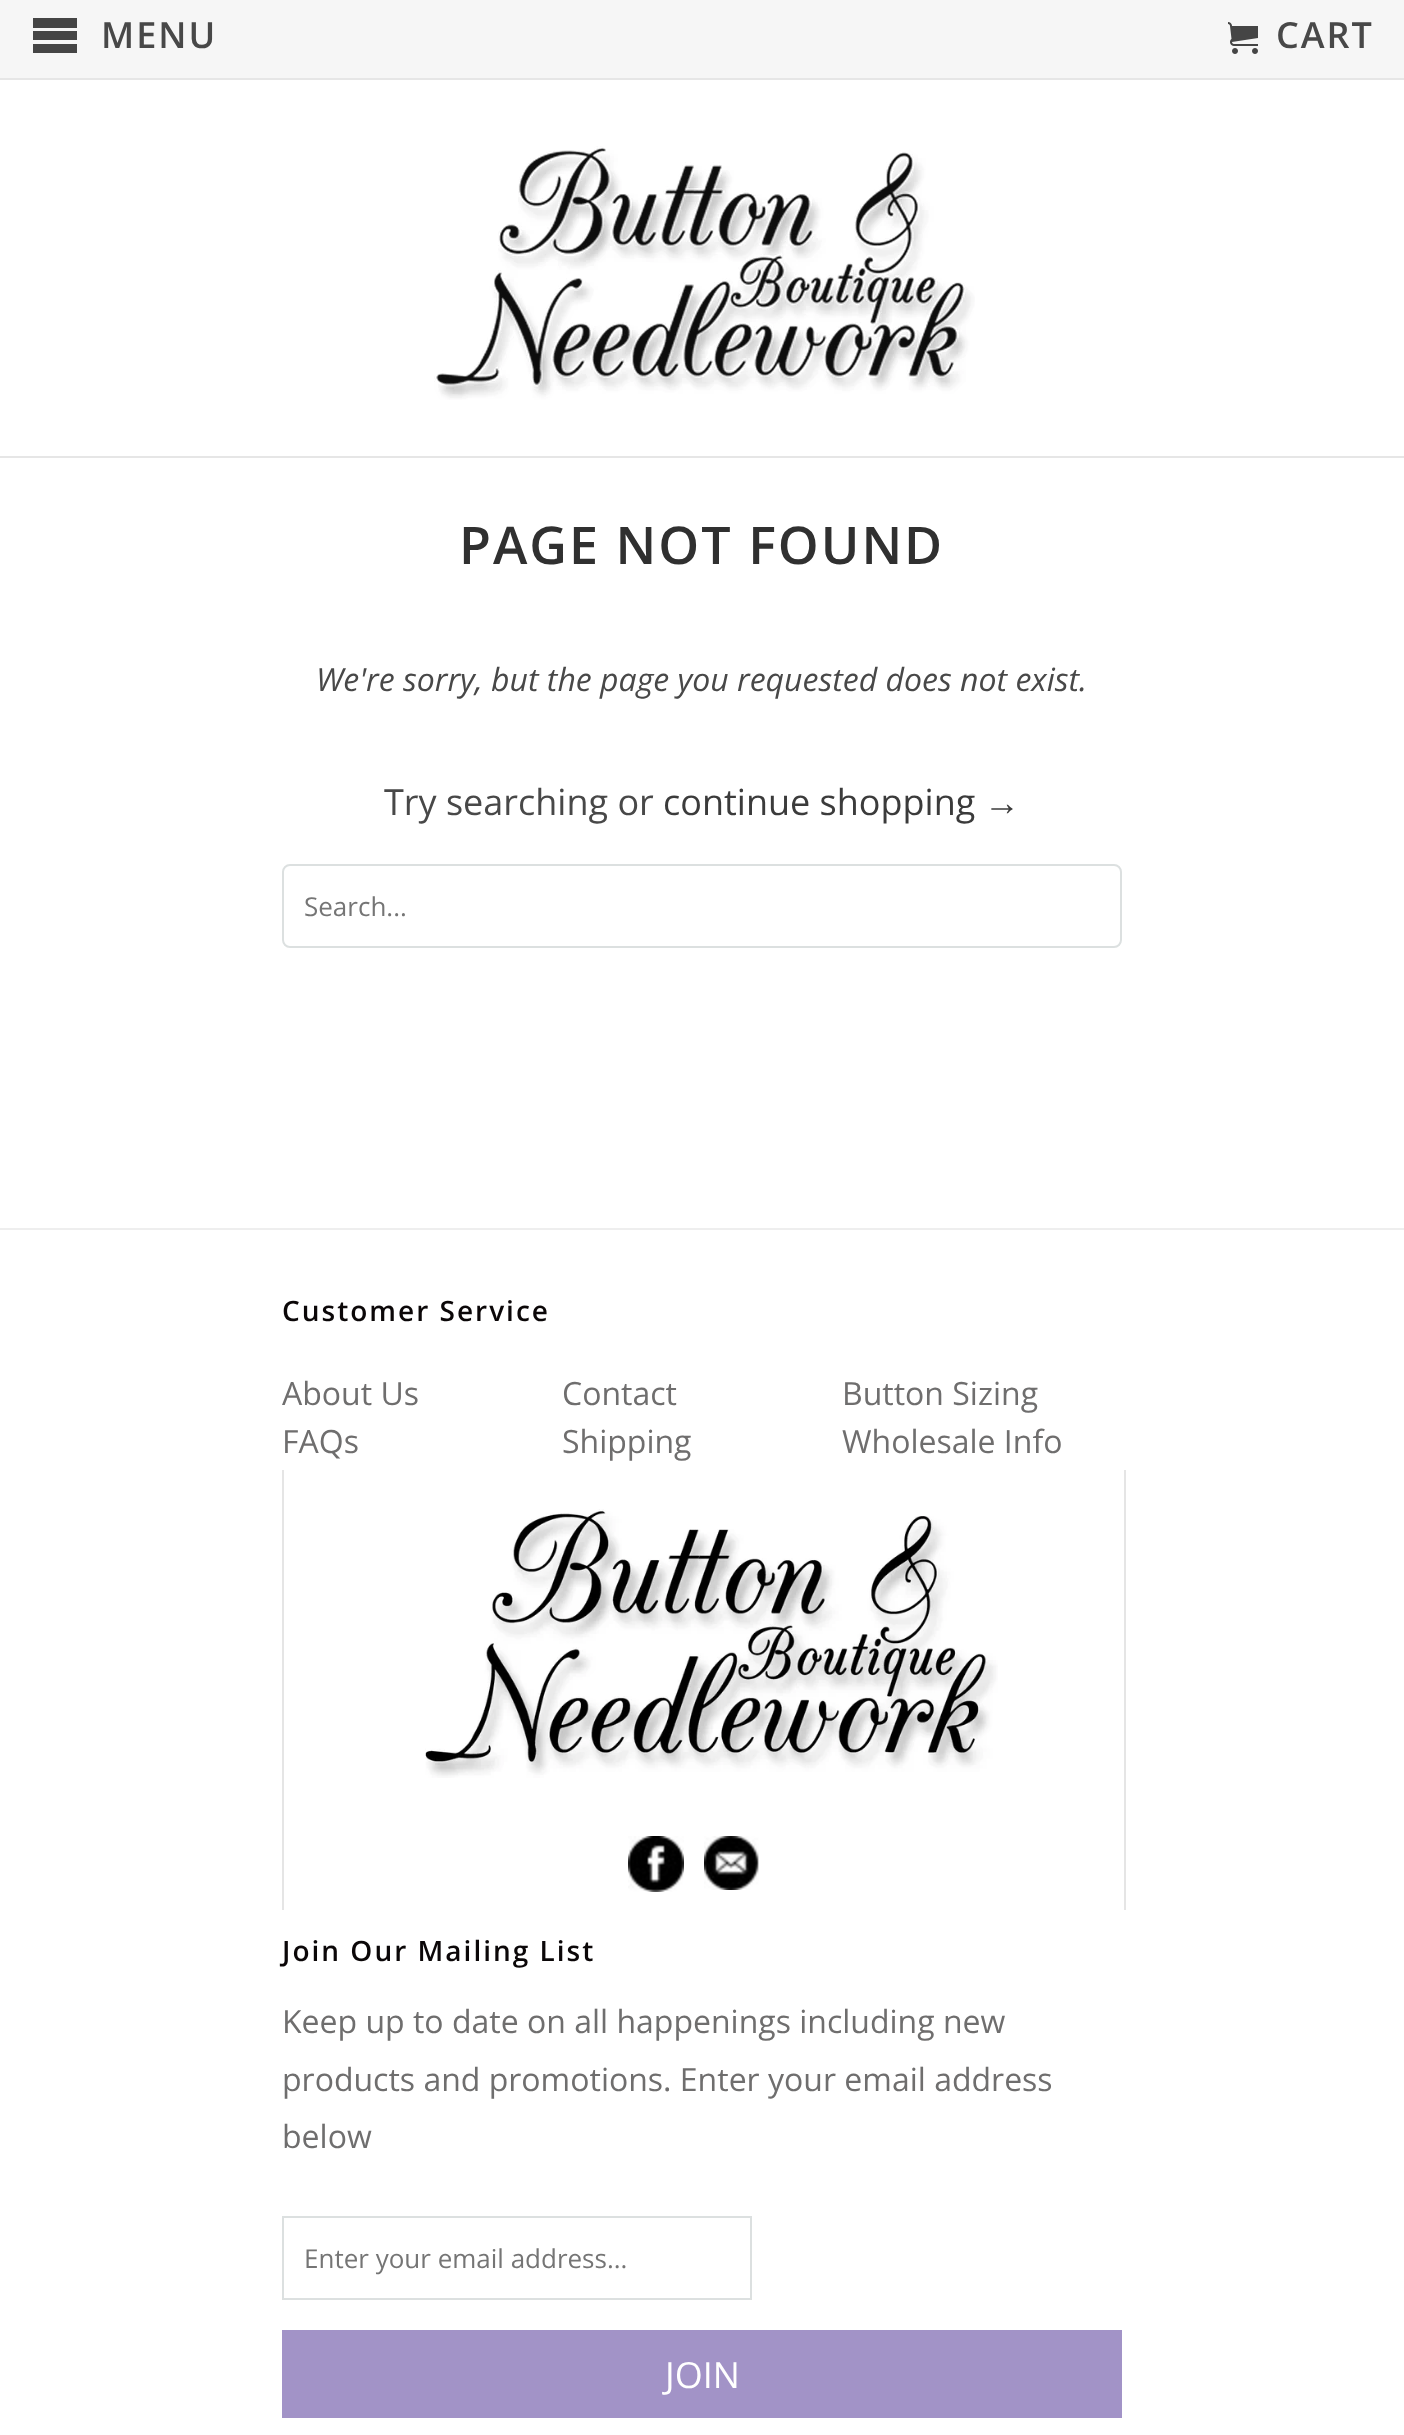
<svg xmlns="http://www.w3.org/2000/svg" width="1404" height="2435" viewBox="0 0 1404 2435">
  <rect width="100%" height="100%" fill="#fff"/>
  <path d="M0 0h1404v78H0z" fill="#f6f6f6"/>
  <path d="M0 78h1404v2H0z" fill="#e6e6e6"/>
  <path d="M33 18V28H77V18ZM33 31V40H77V31ZM33 44V53H77V44Z" fill="#454545"/>
  <image x="1228" y="22" width="30" height="32" href="img/1.png"/>
  <path d="M0 456h1404v2H0z" fill="#e6e6e6"/>
  <image x="434" y="146" width="541" height="254" href="img/2.png"/>
  <rect x="283" y="865" width="838" height="82" rx="7" fill="none" stroke="#dce0e0" stroke-width="2"/>
  <path d="M0 1228h1404v2H0z" fill="#eee"/>
  <path d="M1124 1470h2v440H1124z" fill="#e5e5e5"/>
  <path d="M282 1470h2v440H282z" fill="#e5e5e5"/>
  <image x="425" y="1509" width="573" height="269" href="img/3.png"/>
  <image x="628" y="1836" width="56" height="56" href="img/4.png"/>
  <image x="704" y="1836" width="55" height="54" href="img/5.png"/>
  <path d="M283 2217h468v82H283z" fill="none" stroke="#dce0e0" stroke-width="2"/>
  <path d="M282 2330h840v88H282z" fill="#a293c7"/>
  <g font-family="Open Sans" font-size="36" font-weight="600" letter-spacing="2" fill="#484848">
    <text x="101" y="48">MENU</text>
    <text x="1276" y="48">CART</text>
  </g>
  <text x="459" y="564" font-family="Open Sans" font-size="52" font-weight="600" letter-spacing="2" fill="#303030">PAGE NOT FOUND</text>
  <text x="316" y="691" font-family="Open Sans" font-size="32" font-style="italic" fill="#484848">We're sorry, but the page you requested does not exist.</text>
  <text x="384" y="815" font-family="Open Sans" font-size="36" fill="#484848">Try searching or</text>
  <text x="663" y="815" font-family="Open Sans" font-size="36" fill="#3b3b3b">continue shopping</text>
  <text x="984" y="815" font-family="Liberation Sans" font-size="36" fill="#3b3b3b">→</text>
  <text x="304" y="916" font-family="Open Sans" font-size="26" fill="#757575">Search...</text>
  <text x="282" y="1321" font-family="Open Sans" font-size="28" font-weight="600" letter-spacing="2" fill="#0b0708">Customer Service</text>
  <g font-family="Open Sans" font-size="32" fill="#6f6e6e">
    <text x="282" y="1405">About Us</text>
    <text x="562" y="1405">Contact</text>
    <text x="842" y="1405">Button Sizing</text>
    <text x="282" y="1453">FAQs</text>
    <text x="562" y="1453">Shipping</text>
    <text x="842" y="1453">Wholesale Info</text>
  </g>
  <text x="282" y="1961" font-family="Open Sans" font-size="28" font-weight="600" letter-spacing="2" fill="#0b0708">Join Our Mailing List</text>
  <g font-family="Open Sans" font-size="32" fill="#6f6e6e">
    <text x="282" y="2033">Keep up to date on all happenings including new</text>
    <text x="282" y="2091">products and promotions. Enter your email address</text>
    <text x="282" y="2148">below</text>
  </g>
  <text x="304" y="2268" font-family="Open Sans" font-size="26" fill="#757575">Enter your email address...</text>
  <text x="665" y="2388" font-family="Open Sans" font-size="36" fill="#fff">JOIN</text>
</svg>
